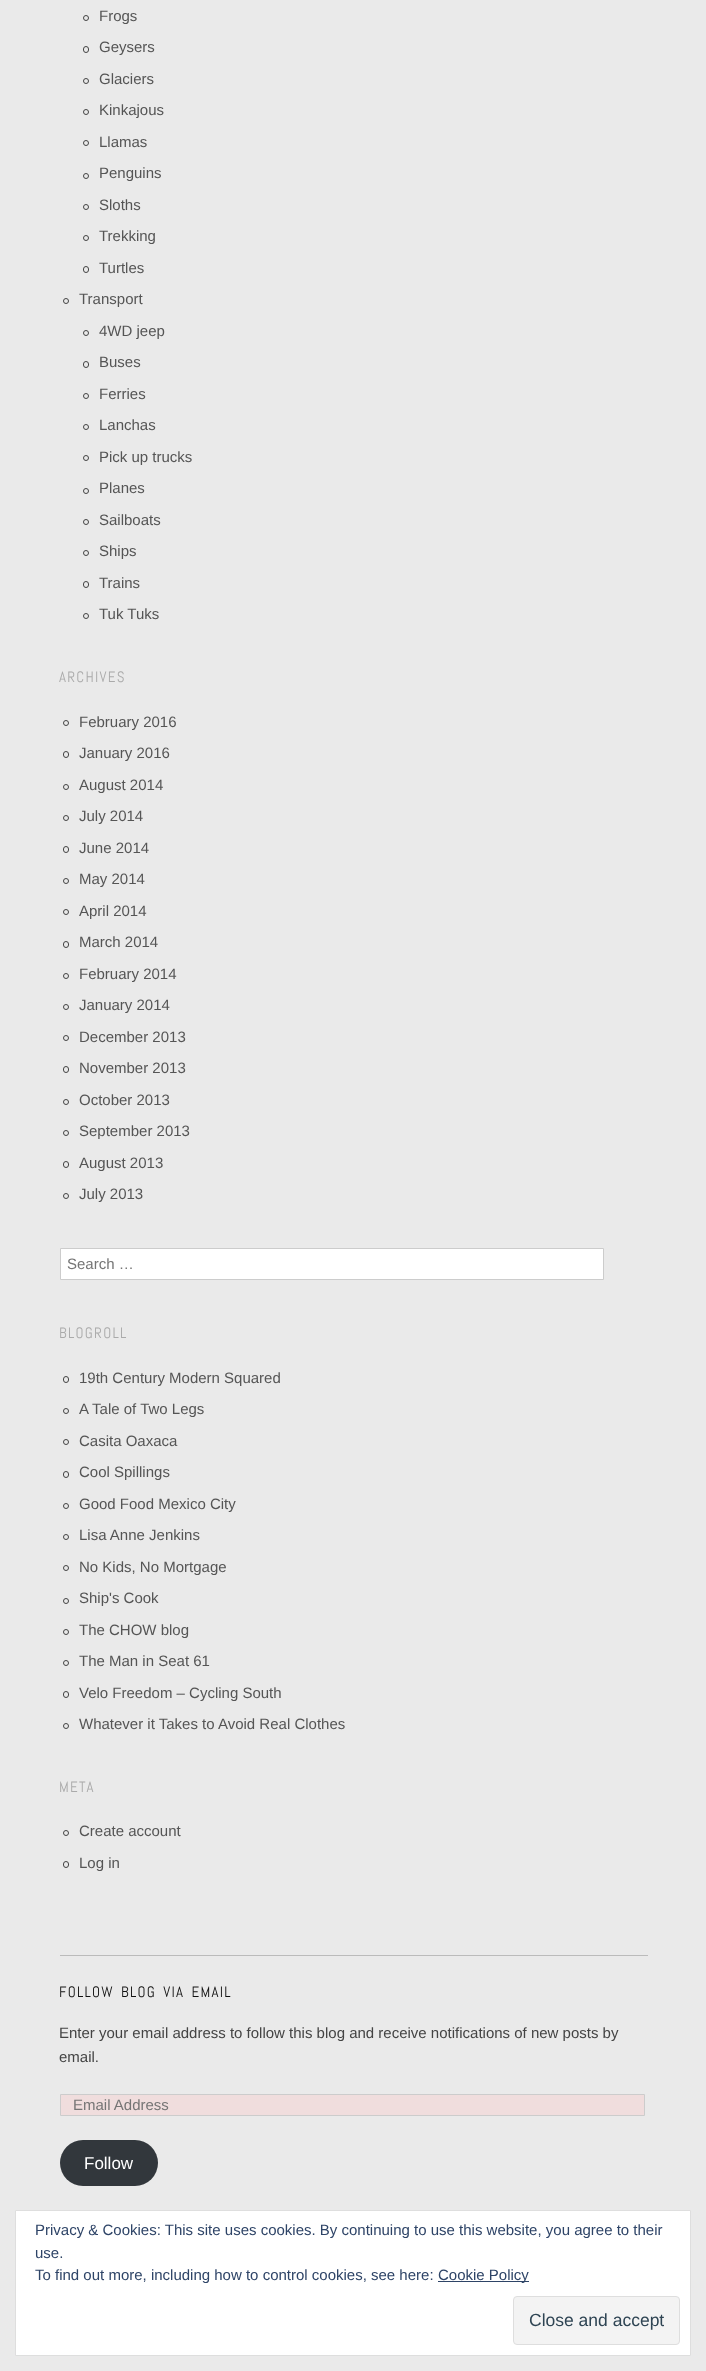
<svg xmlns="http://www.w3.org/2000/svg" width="706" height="2371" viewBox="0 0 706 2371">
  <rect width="100%" height="100%" fill="#eaeaea"/>
  <circle cx="86" cy="18" r="2.5" fill="none" stroke="#444"/>
  <rect x="83.5" y="46.5" width="5" height="6" rx="2.5" fill="none" stroke="#444"/>
  <circle cx="86" cy="81" r="2.5" fill="none" stroke="#444"/>
  <circle cx="86" cy="112" r="2.5" fill="none" stroke="#444"/>
  <circle cx="86" cy="143" r="2.5" fill="none" stroke="#444"/>
  <circle cx="86" cy="176" r="2.5" fill="none" stroke="#444"/>
  <circle cx="86" cy="207" r="2.5" fill="none" stroke="#444"/>
  <circle cx="86" cy="238" r="2.5" fill="none" stroke="#444"/>
  <rect x="83.5" y="266.5" width="5" height="6" rx="2.5" fill="none" stroke="#444"/>
  <circle cx="66" cy="301" r="2.5" fill="none" stroke="#444"/>
  <circle cx="86" cy="333" r="2.5" fill="none" stroke="#444"/>
  <rect x="83.5" y="361.5" width="5" height="6" rx="2.5" fill="none" stroke="#444"/>
  <circle cx="86" cy="396" r="2.5" fill="none" stroke="#444"/>
  <circle cx="86" cy="427" r="2.5" fill="none" stroke="#444"/>
  <circle cx="86" cy="458" r="2.5" fill="none" stroke="#444"/>
  <circle cx="86" cy="491" r="2.5" fill="none" stroke="#444"/>
  <circle cx="86" cy="522" r="2.5" fill="none" stroke="#444"/>
  <circle cx="86" cy="553" r="2.5" fill="none" stroke="#444"/>
  <rect x="83.5" y="581.5" width="5" height="6" rx="2.5" fill="none" stroke="#444"/>
  <circle cx="86" cy="616" r="2.5" fill="none" stroke="#444"/>
  <circle cx="66" cy="723" r="2.5" fill="none" stroke="#444"/>
  <rect x="63.5" y="751.5" width="5" height="6" rx="2.5" fill="none" stroke="#444"/>
  <circle cx="66" cy="787" r="2.5" fill="none" stroke="#444"/>
  <circle cx="66" cy="818" r="2.5" fill="none" stroke="#444"/>
  <rect x="63.5" y="846.5" width="5" height="6" rx="2.5" fill="none" stroke="#444"/>
  <circle cx="66" cy="881" r="2.5" fill="none" stroke="#444"/>
  <circle cx="66" cy="912" r="2.5" fill="none" stroke="#444"/>
  <rect x="63.5" y="941.5" width="5" height="6" rx="2.5" fill="none" stroke="#444"/>
  <circle cx="66" cy="976" r="2.5" fill="none" stroke="#444"/>
  <circle cx="66" cy="1007" r="2.5" fill="none" stroke="#444"/>
  <circle cx="66" cy="1038" r="2.5" fill="none" stroke="#444"/>
  <rect x="63.5" y="1066.5" width="5" height="6" rx="2.5" fill="none" stroke="#444"/>
  <circle cx="66" cy="1102" r="2.5" fill="none" stroke="#444"/>
  <circle cx="66" cy="1133" r="2.5" fill="none" stroke="#444"/>
  <rect x="63.5" y="1161.5" width="5" height="6" rx="2.5" fill="none" stroke="#444"/>
  <circle cx="66" cy="1196" r="2.5" fill="none" stroke="#444"/>
  <path d="M60.5 1248.5h543v31H60.5z" fill="#fff" stroke="#ccc"/>
  <rect x="63.5" y="1376.5" width="5" height="6" rx="2.5" fill="none" stroke="#444"/>
  <circle cx="66" cy="1411" r="2.5" fill="none" stroke="#444"/>
  <circle cx="66" cy="1442" r="2.5" fill="none" stroke="#444"/>
  <rect x="63.5" y="1471.5" width="5" height="6" rx="2.5" fill="none" stroke="#444"/>
  <circle cx="66" cy="1506" r="2.5" fill="none" stroke="#444"/>
  <circle cx="66" cy="1537" r="2.5" fill="none" stroke="#444"/>
  <circle cx="66" cy="1568" r="2.5" fill="none" stroke="#444"/>
  <circle cx="66" cy="1601" r="2.5" fill="none" stroke="#444"/>
  <circle cx="66" cy="1632" r="2.5" fill="none" stroke="#444"/>
  <circle cx="66" cy="1663" r="2.5" fill="none" stroke="#444"/>
  <rect x="63.5" y="1691.5" width="5" height="6" rx="2.5" fill="none" stroke="#444"/>
  <circle cx="66" cy="1726" r="2.5" fill="none" stroke="#444"/>
  <circle cx="66" cy="1833" r="2.5" fill="none" stroke="#444"/>
  <rect x="63.5" y="1861.5" width="5" height="6" rx="2.5" fill="none" stroke="#444"/>
  <path d="M60 1955h588v1H60z" fill="#bbb"/>
  <path d="M60.5 2094.5h584v21H60.5z" fill="#f0dddd" stroke="#ccc"/>
  <rect x="60" y="2140" width="98" height="46" rx="23" fill="#32373c"/>
  <path d="M15.5 2210.5h675v145H15.5z" fill="#fff" stroke="#dedede"/>
  <path d="M438 2281h91v1H438z" fill="#2e4467"/>
  <rect x="513.5" y="2296.5" width="166" height="48" rx="3.5" fill="#f3f3f3" stroke="#dedede"/>
  <g font-family="Liberation Sans" font-size="15" fill="#555">
    <text x="99" y="21">Frogs</text>
    <text x="99" y="52">Geysers</text>
    <text x="99" y="84">Glaciers</text>
    <text x="99" y="115">Kinkajous</text>
    <text x="99" y="147">Llamas</text>
    <text x="99" y="178">Penguins</text>
    <text x="99" y="210">Sloths</text>
    <text x="99" y="241">Trekking</text>
    <text x="99" y="273">Turtles</text>
    <text x="79" y="304">Transport</text>
    <text x="99" y="336">4WD jeep</text>
    <text x="99" y="367">Buses</text>
    <text x="99" y="399">Ferries</text>
    <text x="99" y="430">Lanchas</text>
    <text x="99" y="462">Pick up trucks</text>
    <text x="99" y="493">Planes</text>
    <text x="99" y="525">Sailboats</text>
    <text x="99" y="556">Ships</text>
    <text x="99" y="588">Trains</text>
    <text x="99" y="619">Tuk Tuks</text>
  </g>
  <text x="59" y="682" font-family="Abel" font-size="15" letter-spacing="1.25" fill="#aaa">ARCHIVES</text>
  <g font-family="Liberation Sans" font-size="15" fill="#555">
    <text x="79" y="727">February 2016</text>
    <text x="79" y="758">January 2016</text>
    <text x="79" y="790">August 2014</text>
    <text x="79" y="821">July 2014</text>
    <text x="79" y="853">June 2014</text>
    <text x="79" y="884">May 2014</text>
    <text x="79" y="916">April 2014</text>
    <text x="79" y="947">March 2014</text>
    <text x="79" y="979">February 2014</text>
    <text x="79" y="1010">January 2014</text>
    <text x="79" y="1042">December 2013</text>
    <text x="79" y="1073">November 2013</text>
    <text x="79" y="1105">October 2013</text>
    <text x="79" y="1136">September 2013</text>
    <text x="79" y="1168">August 2013</text>
    <text x="79" y="1199">July 2013</text>
  </g>
  <text x="67" y="1269" font-family="Liberation Sans" font-size="15" fill="#757575">Search …</text>
  <text x="59" y="1338" font-family="Abel" font-size="15" letter-spacing="1.25" fill="#aaa">BLOGROLL</text>
  <g font-family="Liberation Sans" font-size="15" fill="#555">
    <text x="79" y="1383">19th Century Modern Squared</text>
    <text x="79" y="1414">A Tale of Two Legs</text>
    <text x="79" y="1446">Casita Oaxaca</text>
    <text x="79" y="1477">Cool Spillings</text>
    <text x="79" y="1509">Good Food Mexico City</text>
    <text x="79" y="1540">Lisa Anne Jenkins</text>
    <text x="79" y="1572">No Kids, No Mortgage</text>
    <text x="79" y="1603">Ship's Cook</text>
    <text x="79" y="1635">The CHOW blog</text>
    <text x="79" y="1666">The Man in Seat 61</text>
    <text x="79" y="1698">Velo Freedom – Cycling South</text>
    <text x="79" y="1729">Whatever it Takes to Avoid Real Clothes</text>
  </g>
  <text x="59" y="1792" font-family="Abel" font-size="15" letter-spacing="1.25" fill="#aaa">META</text>
  <g font-family="Liberation Sans" font-size="15" fill="#555">
    <text x="79" y="1836">Create account</text>
    <text x="79" y="1868">Log in</text>
  </g>
  <text x="59" y="1997" word-spacing="2.5" font-family="Abel" font-size="15" letter-spacing="1.25" fill="#111">FOLLOW BLOG VIA EMAIL</text>
  <g font-family="Liberation Sans" font-size="15" fill="#444">
    <text x="59" y="2038">Enter your email address to follow this blog and receive notifications of new posts by</text>
    <text x="59" y="2062">email.</text>
  </g>
  <text x="73" y="2110" font-family="Liberation Sans" font-size="15" fill="#757575">Email Address</text>
  <text x="84" y="2169" font-family="Liberation Sans" font-size="17" fill="#fff">Follow</text>
  <g font-family="Liberation Sans" font-size="15" fill="#2e4467">
    <text x="35" y="2235">Privacy &amp; Cookies: This site uses cookies. By continuing to use this website, you agree to their</text>
    <text x="35" y="2258">use.</text>
    <text x="35" y="2280">To find out more, including how to control cookies, see here:</text>
    <text x="438" y="2280">Cookie Policy</text>
  </g>
  <text x="529" y="2326" font-family="Liberation Sans" font-size="17.5" fill="#2e4453">Close and accept</text>
</svg>
